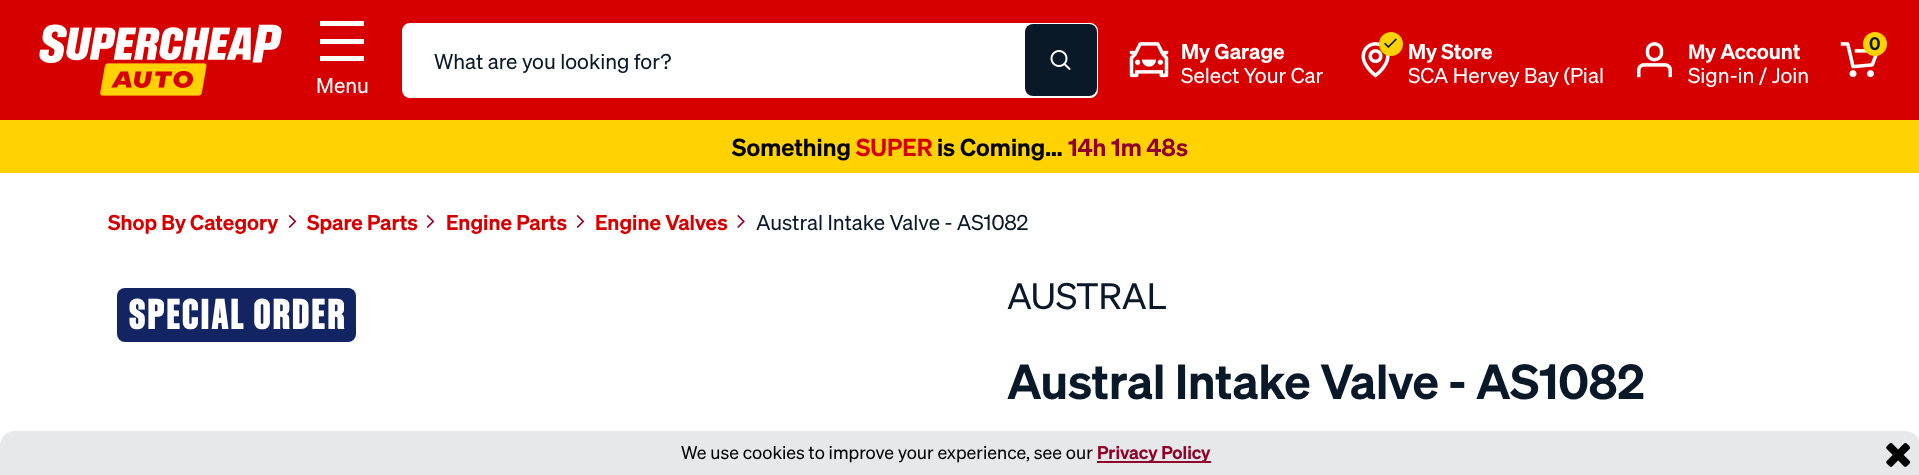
<svg xmlns="http://www.w3.org/2000/svg" width="1919" height="475" viewBox="0 0 1919 475">
  <defs>
    <clipPath id="clip1"><path d="M1409 57h195v32H1409z"/></clipPath>
  </defs>
  <rect width="100%" height="100%" fill="#fff"/>
  <path d="M0 0h1919v120H0z" fill="#d70000"/>
  <image x="39" y="24" width="243" height="72" href="img/1.png"/>
  <rect x="403" y="24" width="694" height="73" rx="7" fill="#fff" stroke="#fff" stroke-width="2"/>
  <rect x="1025" y="24" width="72" height="72" rx="8" fill="#0a1928"/>
  <image x="1050" y="50" width="21" height="20" href="img/2.png"/>
  <image x="1129" y="42" width="40" height="36" href="img/3.png"/>
  <image x="1361" y="42" width="29" height="36" href="img/4.png"/>
  <circle cx="1391" cy="44" r="12" fill="#ffd200"/>
  <image x="1384" y="38" width="13" height="10" href="img/5.png"/>
  <image x="1637" y="42" width="35" height="36" href="img/6.png"/>
  <image x="1840" y="42" width="38" height="36" href="img/7.png"/>
  <circle cx="1875" cy="44" r="12" fill="#ffd200"/>
  <path d="M320 21H364V26H320ZM320 39H364V44H320ZM320 56H364V61H320Z" fill="#fff"/>
  <path d="M0 120h1919v53H0z" fill="#ffd200"/>
  <image x="288" y="214" width="9" height="14" href="img/8.png"/>
  <image x="426" y="214" width="9" height="14" href="img/8.png"/>
  <image x="576" y="214" width="9" height="14" href="img/8.png"/>
  <image x="737" y="214" width="8" height="14" href="img/9.png"/>
  <rect x="117" y="288" width="239" height="54" rx="8" fill="#122461"/>
  <path d="M15 431H1905C1913.5 431 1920 437.5 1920 446V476H0V446C0 437.5 6.5 431 15 431Z" fill="#e7e8ea"/>
  <path d="M1097 461h114v2H1097z" fill="#910028"/>
  <image x="1886" y="443" width="25" height="24" href="img/10.png"/>
  <text x="434" y="69" font-family="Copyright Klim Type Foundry" font-size="21" fill="#0a1928">What are you looking for?</text>
  <text x="1181" y="59" font-family="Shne" font-size="21" font-weight="600" fill="#fff">My Garage</text>
  <text x="1181" y="83" font-family="Copyright Klim Type Foundry" font-size="21" fill="#fff">Select Your Car</text>
  <text x="1408" y="59" font-family="Shne" font-size="21" font-weight="600" fill="#fff">My Store</text>
  <g clip-path="url(#clip1)">
    <text x="1408" y="83" font-family="Copyright Klim Type Foundry" font-size="21" fill="#fff">SCA Hervey Bay (Pial</text>
  </g>
  <text x="1688" y="59" font-family="Liberation Sans" font-size="21" font-weight="bold" fill="#fff">Μ</text>
  <text x="1705" y="59" font-family="Shne" font-size="21" font-weight="600" fill="#fff">y Account</text>
  <text x="1688" y="83" font-family="Copyright Klim Type Foundry" font-size="21" fill="#fff">Sign-in / Join</text>
  <text x="1869" y="50" font-family="Shne" font-size="18" font-weight="600" fill="#0a1928">0</text>
  <text x="316" y="93" font-family="Copyright Klim Type Foundry" font-size="21" fill="#fff">Menu</text>
  <text x="732" y="156" font-family="Shne" font-size="24" font-weight="600" fill="#000">Something</text>
  <text x="856" y="156" font-family="Shne" font-size="24" font-weight="600" fill="#d70000">SUPER</text>
  <text x="937" y="156" font-family="Shne" font-size="24" font-weight="600" fill="#000">is Coming...</text>
  <text x="1068" y="156" font-family="Shne" font-size="24" font-weight="600" fill="#910028">14h 1m 48s</text>
  <g font-family="Shne" font-size="21" font-weight="600" fill="#d70000">
    <text x="108" y="230">Shop By Category</text>
    <text x="307" y="230">Spare Parts</text>
    <text x="446" y="230">Engine Parts</text>
    <text x="595" y="230">Engine Valves</text>
  </g>
  <text x="756" y="230" font-family="Copyright Klim Type Foundry" font-size="21" fill="#0a1928">Austral Intake Valve - AS1082</text>
  <text x="129" y="329" font-family="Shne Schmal" font-size="42" font-weight="800" letter-spacing="2.1" fill="#fff">SPECIAL ORDER</text>
  <text x="1007" y="309" font-family="Copyright Klim Type Foundry" font-size="36" fill="#0a1928">AUSTRAL</text>
  <text x="1007" y="399" font-family="Shne" font-size="48" font-weight="600" fill="#0a1928">Austral Intake Valve - AS1082</text>
  <text x="681" y="459" font-family="Copyright Klim Type Foundry" font-size="18" fill="#000">We use cookies to improve your experience, see our</text>
  <text x="1097" y="459" font-family="Shne" font-size="18" font-weight="600" fill="#910028">Privacy Policy</text>
</svg>
